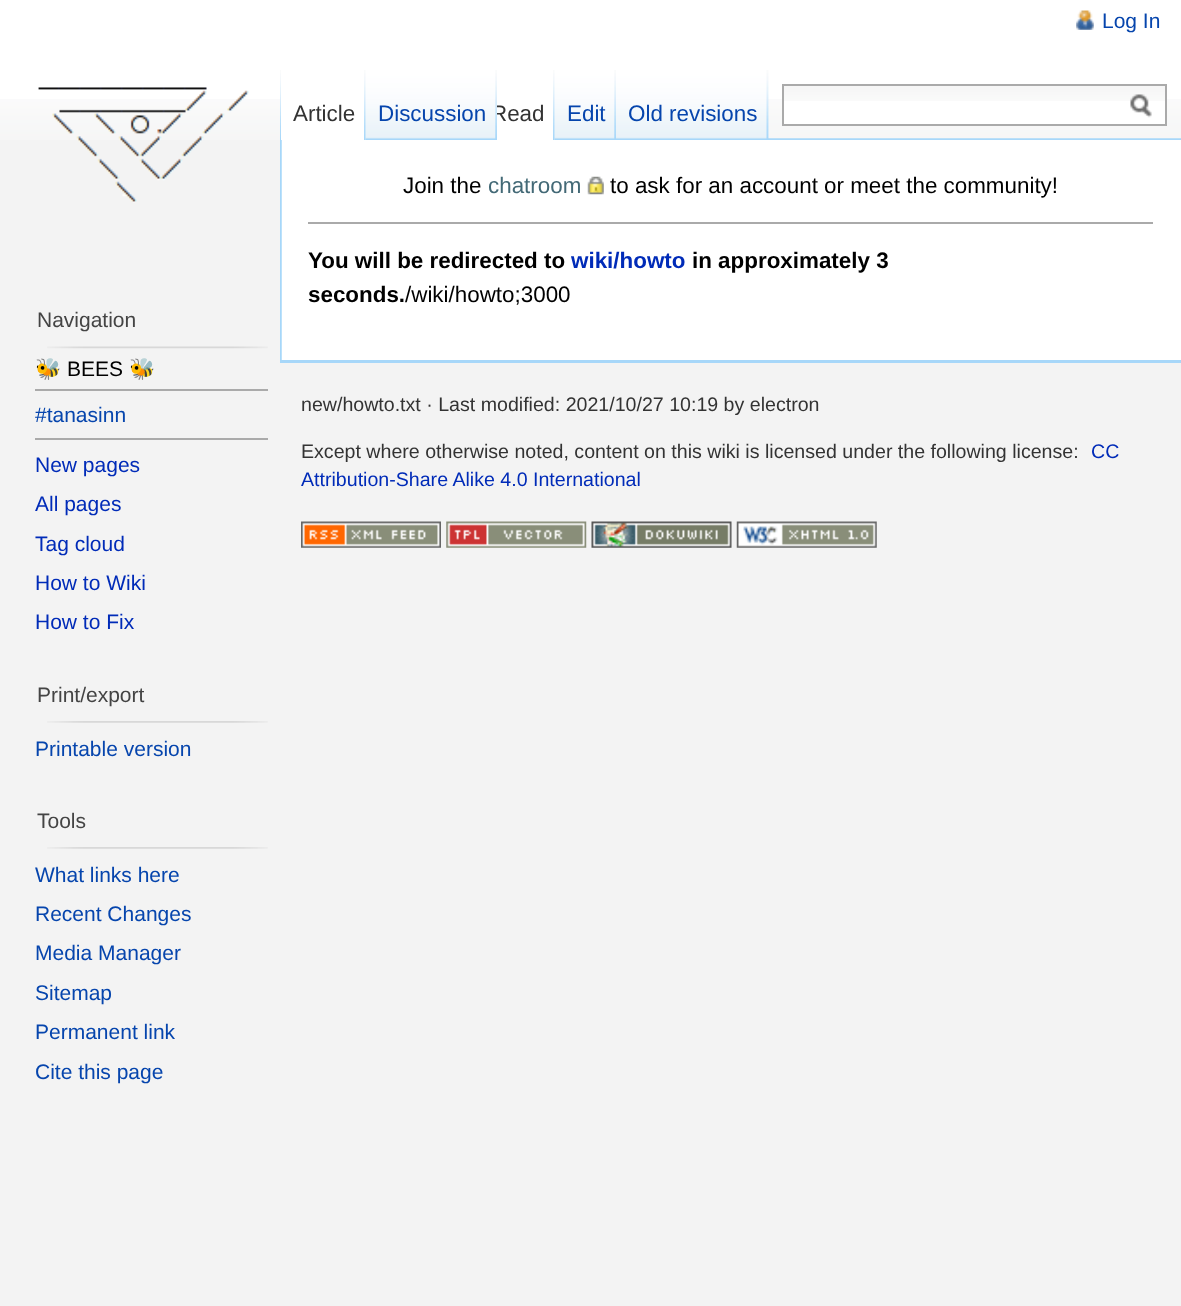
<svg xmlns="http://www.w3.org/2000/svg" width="1181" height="1306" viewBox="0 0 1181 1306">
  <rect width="100%" height="100%" fill="#f3f3f3"/>
  <path d="M0 0h1181v99H0z" fill="#fff"/>
  <image x="0" y="99" width="1181" height="41" href="img/1.png"/>
  <image x="1076" y="10" width="18" height="20" href="img/2.png"/>
  <image x="280" y="138" width="901" height="2" href="img/13.png"/>
  <image x="280" y="70" width="1" height="69" href="img/3.png"/>
  <path d="M281 99h85v41H281z" fill="#fff"/>
  <image x="364" y="70" width="2" height="70" href="img/4.png"/>
  <image x="768" y="70" width="1" height="69" href="img/7.png"/>
  <path d="M497 99h58v41H497z" fill="#fff"/>
  <image x="553" y="70" width="2" height="70" href="img/4.png"/>
  <image x="554" y="70" width="62" height="70" href="img/8.png"/>
  <image x="614" y="70" width="2" height="69" href="img/6.png"/>
  <image x="616" y="70" width="152" height="70" href="img/9.png"/>
  <image x="766" y="70" width="3" height="69" href="img/10.png"/>
  <path d="M784 101h381v23H784z" fill="#fff"/>
  <image x="784" y="86" width="381" height="15" href="img/11.png"/>
  <path d="M783 85h383v40H783z" fill="none" stroke="#aaa" stroke-width="2"/>
  <image x="1130" y="94" width="22" height="24" href="img/12.png"/>
  <path d="M281 140h900v220H281z" fill="#fff"/>
  <image x="280" y="140" width="2" height="220" href="img/14.png"/>
  <image x="587" y="176" width="17" height="19" href="img/15.png"/>
  <path d="M308 222h845v2H308z" fill="#aaa"/>
  <image x="38" y="87" width="211" height="116" href="img/16.png"/>
  <image x="47" y="346" width="221" height="3" href="img/17.png"/>
  <path d="M35 389h233v2H35z" fill="#aaa"/>
  <path d="M35 438h233v2H35z" fill="#aaa"/>
  <image x="47" y="721" width="221" height="2" href="img/18.png"/>
  <image x="47" y="847" width="221" height="2" href="img/18.png"/>
  <path d="M280 360h901v3H280z" fill="#a7d7f9"/>
  <image x="301" y="521" width="140" height="27" href="img/19.png"/>
  <image x="446" y="521" width="141" height="27" href="img/20.png"/>
  <image x="591" y="521" width="141" height="27" href="img/21.png"/>
  <image x="736" y="521" width="141" height="27" href="img/22.png"/>
  <text x="1102" y="28" font-family="Liberation Sans" font-size="21" fill="#0645ad">Log In</text>
  <g font-family="Liberation Sans" font-size="22.4" fill="#333">
    <text x="293" y="121">Article</text>
    <text x="491" y="121">Read</text>
  </g>
  <image x="365" y="70" width="132" height="70" href="img/5.png"/>
  <text x="378" y="121" font-family="Liberation Sans" font-size="22.4" fill="#0645ad">Discussion</text>
  <image x="495" y="70" width="2" height="69" href="img/6.png"/>
  <g font-family="Liberation Sans" font-size="22.4" fill="#0645ad">
    <text x="567" y="121">Edit</text>
    <text x="628" y="121">Old revisions</text>
  </g>
  <text x="403" y="193" font-family="Liberation Sans" font-size="22.4" fill="#000">Join the</text>
  <text x="488" y="193" font-family="Liberation Sans" font-size="22.4" fill="#436976">chatroom</text>
  <text x="610" y="193" font-family="Liberation Sans" font-size="22.4" fill="#000">to ask for an account or meet the community!</text>
  <text x="308" y="268" font-family="Liberation Sans" font-size="22.4" font-weight="bold" fill="#000">You will be redirected to</text>
  <text x="571" y="268" font-family="Liberation Sans" font-size="22.4" font-weight="bold" fill="#002bb8">wiki/howto</text>
  <g font-family="Liberation Sans" font-size="22.4" font-weight="bold" fill="#000">
    <text x="692" y="268">in approximately 3</text>
    <text x="308" y="302">seconds.</text>
  </g>
  <text x="405" y="302" font-family="Liberation Sans" font-size="22.4" fill="#000">/wiki/howto;3000</text>
  <text x="37" y="327" font-family="Liberation Sans" font-size="21" fill="#444">Navigation</text>
  <text x="35" y="376" font-family="Noto Color Emoji" font-size="21" fill="#000">🐝</text>
  <text x="67" y="376" font-family="Liberation Sans" font-size="21" fill="#000">BEES</text>
  <text x="129" y="376" font-family="Noto Color Emoji" font-size="21" fill="#000">🐝</text>
  <text x="35" y="422" font-family="Liberation Sans" font-size="21" fill="#0645ad">#tanasinn</text>
  <g font-family="Liberation Sans" font-size="21" fill="#002bb8">
    <text x="35" y="472">New pages</text>
    <text x="35" y="511">All pages</text>
    <text x="35" y="551">Tag cloud</text>
    <text x="35" y="590">How to Wiki</text>
    <text x="35" y="629">How to Fix</text>
  </g>
  <text x="37" y="702" font-family="Liberation Sans" font-size="21" fill="#444">Print/export</text>
  <text x="35" y="756" font-family="Liberation Sans" font-size="21" fill="#0645ad">Printable version</text>
  <text x="37" y="828" font-family="Liberation Sans" font-size="21" fill="#444">Tools</text>
  <g font-family="Liberation Sans" font-size="21" fill="#0645ad">
    <text x="35" y="882">What links here</text>
    <text x="35" y="921">Recent Changes</text>
    <text x="35" y="960">Media Manager</text>
    <text x="35" y="1000">Sitemap</text>
    <text x="35" y="1039">Permanent link</text>
    <text x="35" y="1079">Cite this page</text>
  </g>
  <g font-family="Liberation Sans" font-size="19.6" fill="#333">
    <text x="301" y="411">new/howto.txt · Last modified: 2021/10/27 10:19 by electron</text>
    <text x="301" y="458">Except where otherwise noted, content on this wiki is licensed under the following license:</text>
  </g>
  <g font-family="Liberation Sans" font-size="19.6" fill="#002bb8">
    <text x="1091" y="458">CC</text>
    <text x="301" y="486">Attribution-Share Alike 4.0 International</text>
  </g>
</svg>
